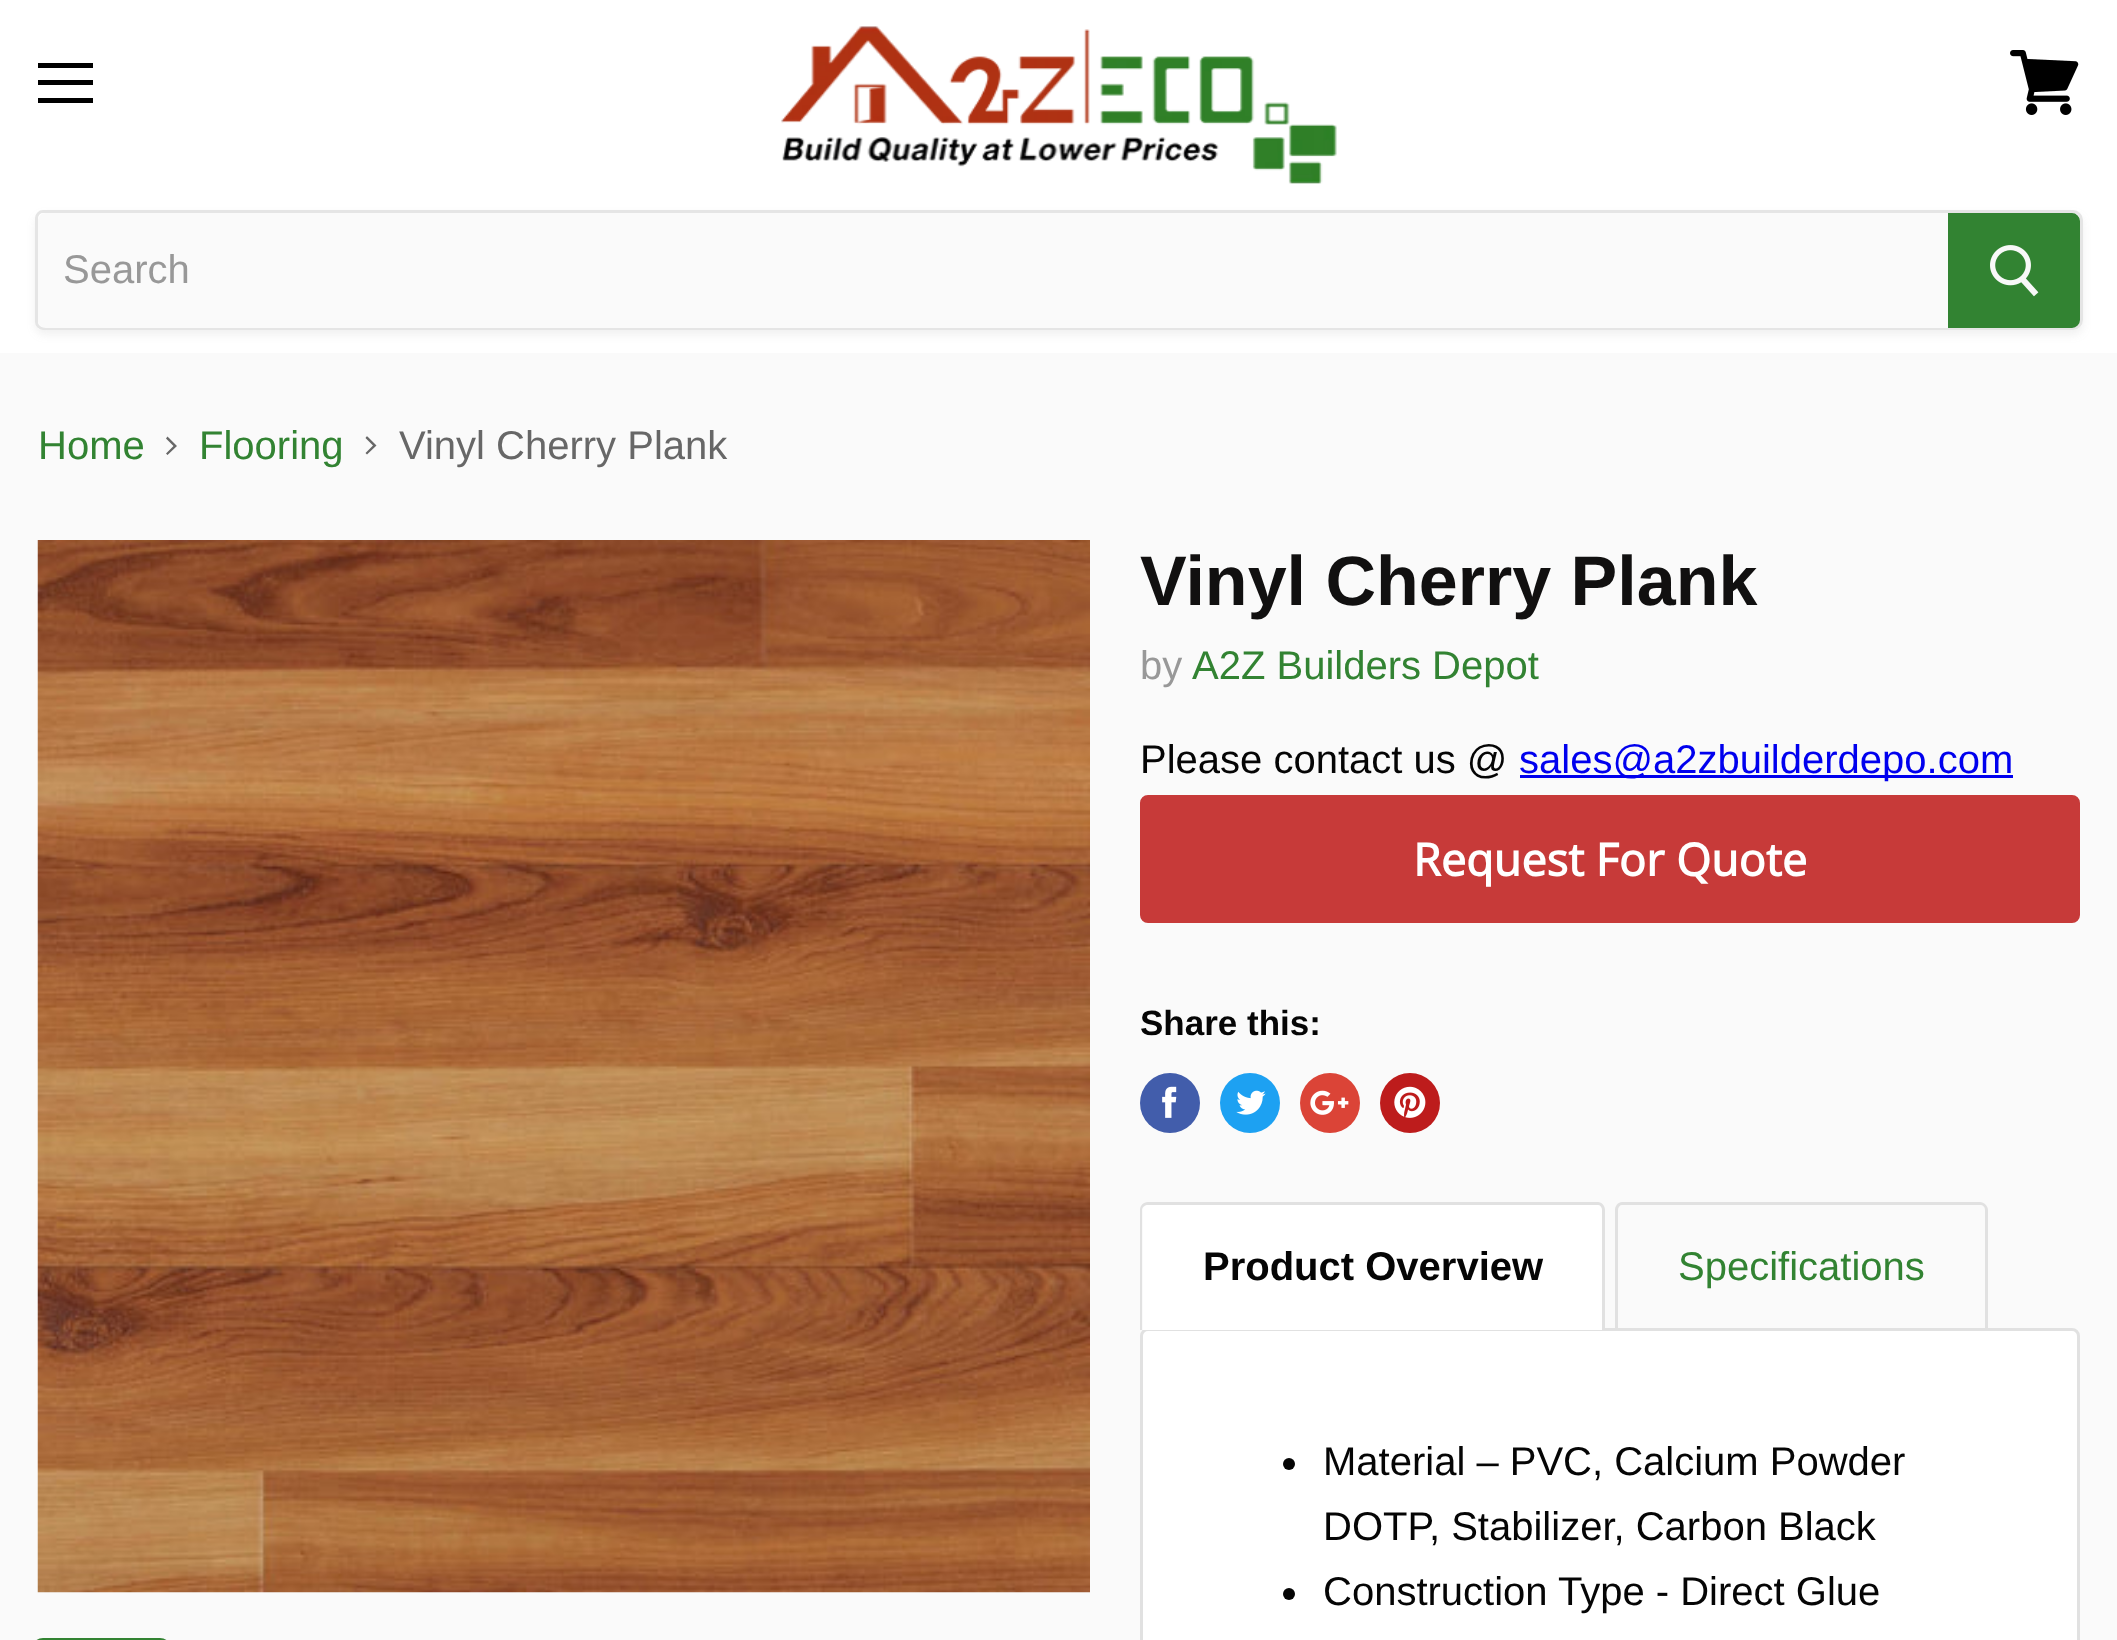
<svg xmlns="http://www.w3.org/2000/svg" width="2117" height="1640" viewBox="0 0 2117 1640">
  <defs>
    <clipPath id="clip1"><path d="M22 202H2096V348H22ZM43 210H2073C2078.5 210 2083 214.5 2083 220V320C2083 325.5 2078.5 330 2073 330H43C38.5 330 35 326.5 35 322V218C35 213.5 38.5 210 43 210Z" clip-rule="evenodd"/></clipPath>
  </defs>
  <rect width="100%" height="100%" fill="#fafafa"/>
  <path d="M0 0h2117v353H0z" fill="#fff"/>
  <path d="M38 63h55v5H38z" fill="#000"/>
  <path d="M38 80h55v5H38z" fill="#000"/>
  <path d="M38 98h55v5H38z" fill="#000"/>
  <image x="2010" y="50" width="69" height="65" href="img/1.png"/>
  <image x="781" y="26" width="556" height="158" href="img/2.png"/>
  <g clip-path="url(#clip1)">
    <rect x="35" y="215" width="2048" height="120" rx="10" fill="#7d7d7d1c" filter="blur(4px)"/>
  </g>
  <path d="M43 211.5H2073C2077.5 211.5 2081.5 215.5 2081.5 220V320C2081.5 324.5 2077.5 328.5 2073 328.5H43C39.5 328.5 36.5 325.5 36.5 322V218C36.5 214.5 39.5 211.5 43 211.5Z" fill="none" stroke="#7d7d7d33" stroke-width="3"/>
  <path d="M46 213H1948V328H46C41.5 328 38 324.5 38 320V221C38 216.5 41.5 213 46 213Z" fill="#fafafa"/>
  <path d="M1949.5 214.5H2072C2075.5 214.5 2078.5 217.5 2078.5 221V320C2078.5 323.5 2075.5 326.5 2072 326.5H1949.5Z" fill="#328332" stroke="#328332" stroke-width="3"/>
  <image x="1990" y="245" width="49" height="52" href="img/3.png"/>
  <path d="M166 453.5L167.5 455L177 446L167.5 436.5L166 438.5L173.5 446Z" fill="#676767" fill-rule="evenodd"/>
  <path d="M365.5 453L373 445.5L365.5 438L366.5 436.5H367.5L376.5 445.5L367 454.5Z" fill="#676767"/>
  <image x="37" y="540" width="1053" height="1053" href="img/4.png"/>
  <rect x="35.5" y="1640.5" width="132" height="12" rx="7.5" fill="none" stroke="#328332" stroke-width="5"/>
  <path d="M1520 775h493v3H1520z" fill="#00e"/>
  <rect x="1141.5" y="796.5" width="937" height="125" rx="6.5" fill="#c73a39" stroke="#c73a39" stroke-width="3"/>
  <circle cx="1170" cy="1103" r="30" fill="#425dab"/>
  <image x="1162" y="1086" width="15" height="32" href="img/5.png"/>
  <circle cx="1250" cy="1103" r="30" fill="#1da1f2"/>
  <image x="1236" y="1090" width="30" height="25" href="img/6.png"/>
  <circle cx="1330" cy="1103" r="30" fill="#db4437"/>
  <image x="1310" y="1090" width="39" height="25" href="img/7.png"/>
  <circle cx="1410" cy="1103" r="30" fill="#bd1c1c"/>
  <image x="1394" y="1086" width="32" height="32" href="img/8.png"/>
  <rect x="1141.5" y="1329.5" width="937" height="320" rx="6.5" fill="#fff" stroke="#e1e1e1" stroke-width="3"/>
  <path d="M1148 1205H1598C1601 1205 1603 1207 1603 1210V1330H1143V1210C1143 1207 1145 1205 1148 1205Z" fill="#fff"/>
  <path d="M1148 1202H1598C1602 1202 1605 1206 1605 1210V1330H1140V1210C1140 1206 1143 1202 1148 1202ZM1148 1205H1598C1600 1205 1602 1207 1602 1210V1330H1142V1210C1142 1207 1145 1205 1148 1205Z" fill="#e1e1e1" fill-rule="evenodd"/>
  <path d="M1622 1202H1980C1984 1202 1988 1206 1988 1210V1330H1615V1210C1615 1206 1618 1202 1622 1202ZM1622 1205H1980C1983 1205 1985 1207 1985 1210V1330H1618V1210C1618 1207 1620 1205 1622 1205Z" fill="#e1e1e1" fill-rule="evenodd"/>
  <circle cx="1289" cy="1464" r="6" fill="#050505"/>
  <circle cx="1289" cy="1594" r="6" fill="#050505"/>
  <text x="63" y="283" font-family="Liberation Sans" font-size="40" fill="#989898">Search</text>
  <g font-family="Liberation Sans" font-size="40" fill="#328332">
    <text x="38" y="459">Home</text>
    <text x="199" y="459">Flooring</text>
  </g>
  <text x="399" y="459" font-family="Liberation Sans" font-size="40" fill="#676767">Vinyl Cherry Plank</text>
  <text x="1140" y="605" font-family="Liberation Sans" font-size="70" font-weight="bold" fill="#111010">Vinyl Cherry Plank</text>
  <text x="1140" y="679" font-family="Liberation Sans" font-size="40" fill="#989898">by</text>
  <text x="1192" y="679" font-family="Liberation Sans" font-size="40" fill="#328332">A2Z Builders Depot</text>
  <text x="1140" y="773" font-family="Liberation Sans" font-size="40" fill="#050505">Please contact us @</text>
  <text x="1519" y="773" font-family="Liberation Sans" font-size="40" fill="#00e">sales@a2zbuilderdepo.com</text>
  <text x="1413" y="876" font-family="Open Sans" font-size="45" font-weight="bold" fill="#fff">Request For Quote</text>
  <text x="1140" y="1035" font-family="Liberation Sans" font-size="35" font-weight="bold" fill="#050505">Share this:</text>
  <text x="1203" y="1280" font-family="Liberation Sans" font-size="40" font-weight="bold" fill="#050505">Product Overview</text>
  <text x="1678" y="1280" font-family="Liberation Sans" font-size="40" fill="#328332">Specifications</text>
  <g font-family="Liberation Sans" font-size="40" fill="#050505">
    <text x="1323" y="1475">Material – PVC, Calcium Powder</text>
    <text x="1323" y="1540">DOTP, Stabilizer, Carbon Black</text>
    <text x="1323" y="1605">Construction Type - Direct Glue</text>
  </g>
</svg>
